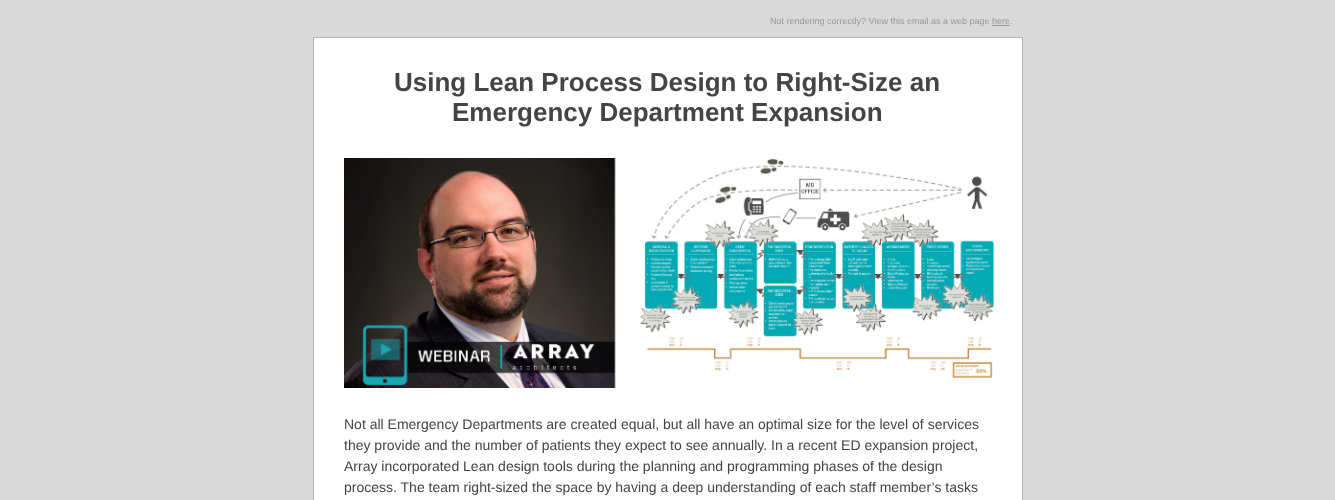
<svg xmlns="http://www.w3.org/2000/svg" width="1335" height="500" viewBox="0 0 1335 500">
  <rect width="100%" height="100%" fill="#d9d9d9"/>
  <path d="M992 25h18v1H992z" fill="#999"/>
  <path d="M314 38h708v462H314z" fill="#fff"/>
  <path d="M313 37h710v1H313z" fill="#b3b3b3"/>
  <path d="M1022 37h1v463H1022z" fill="#b3b3b3"/>
  <path d="M313 37h1v463H313z" fill="#b3b3b3"/>
  <image x="344" y="158" width="650" height="230" href="img/1.png"/>
  <text x="770" y="24" font-family="Liberation Sans" font-size="9" fill="#999">Not rendering correctly? View this email as a web page here.</text>
  <g font-family="Liberation Sans" font-size="26" font-weight="bold" fill="#444">
    <text x="394" y="91">Using Lean Process Design to Right-Size an</text>
    <text x="452" y="121">Emergency Department Expansion</text>
  </g>
  <g font-family="Liberation Sans" font-size="14" fill="#444">
    <text x="344" y="429">Not all Emergency Departments are created equal, but all have an optimal size for the level of services</text>
    <text x="344" y="450">they provide and the number of patients they expect to see annually. In a recent ED expansion project,</text>
    <text x="344" y="471">Array incorporated Lean design tools during the planning and programming phases of the design</text>
    <text x="344" y="492">process. The team right-sized the space by having a deep understanding of each staff member’s tasks</text>
  </g>
</svg>
